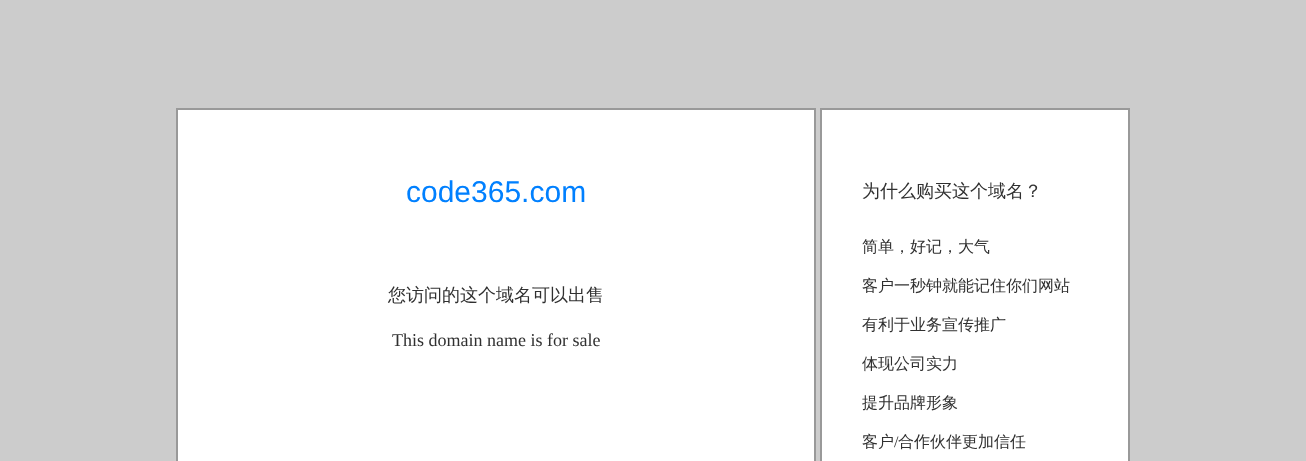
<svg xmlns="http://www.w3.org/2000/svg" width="1306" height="461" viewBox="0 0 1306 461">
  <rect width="100%" height="100%" fill="#ccc"/>
  <path d="M177 109h638v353H177z" fill="#fff" stroke="#999" stroke-width="2"/>
  <path d="M821 109h308v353H821z" fill="#fff" stroke="#999" stroke-width="2"/>
  <text x="406" y="202" font-family="Liberation Sans" font-size="30" fill="#0080ff">code365.com</text>
  <text x="388" y="301" font-family="WenQuanYi Zen Hei" font-size="18" font-weight="500" fill="#303030">您访问的这个域名可以出售</text>
  <text x="392" y="346" font-family="Liberation Serif" font-size="18" fill="#303030">This domain name is for sale</text>
  <text x="862" y="197" font-family="WenQuanYi Zen Hei" font-size="18" font-weight="500" fill="#303030">为什么购买这个域名？</text>
  <g font-family="WenQuanYi Zen Hei" font-size="16" font-weight="500" fill="#303030">
    <text x="862" y="252">简单，好记，大气</text>
    <text x="862" y="291">客户一秒钟就能记住你们网站</text>
    <text x="862" y="330">有利于业务宣传推广</text>
    <text x="862" y="369">体现公司实力</text>
    <text x="862" y="408">提升品牌形象</text>
    <text x="862" y="447">客户</text>
  </g>
  <text x="894" y="447" font-family="Liberation Serif" font-size="16" fill="#303030">/</text>
  <text x="898" y="447" font-family="WenQuanYi Zen Hei" font-size="16" font-weight="500" fill="#303030">合作伙伴更加信任</text>
</svg>
